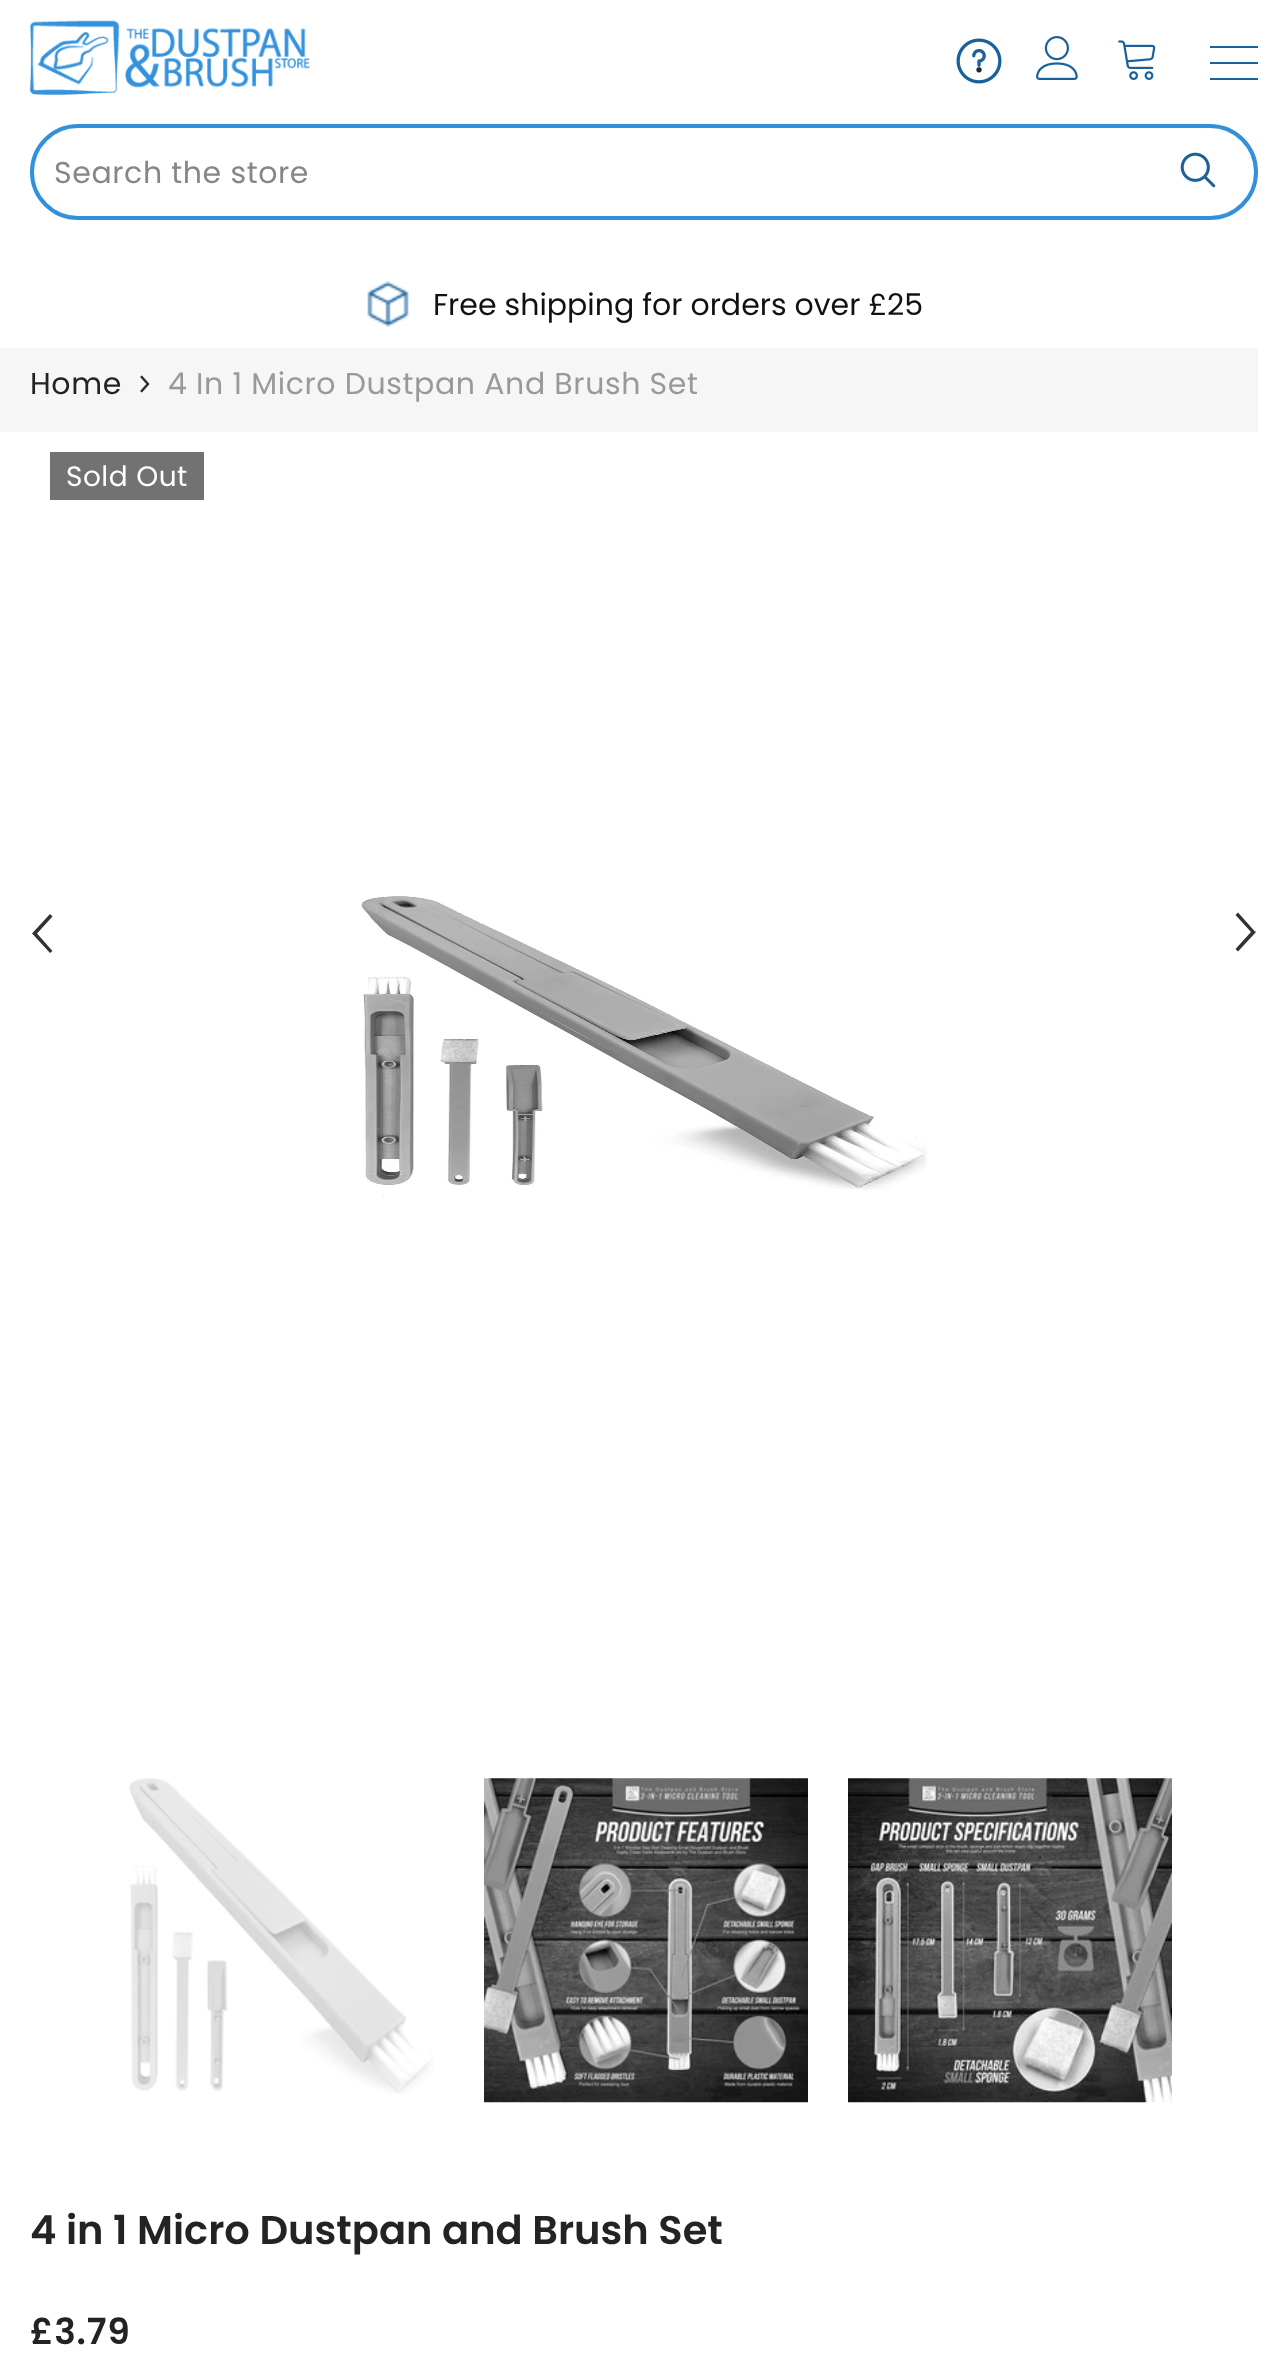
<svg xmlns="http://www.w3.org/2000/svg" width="1287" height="2362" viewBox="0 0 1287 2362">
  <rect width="100%" height="100%" fill="#fff"/>
  <image x="30" y="20" width="280" height="75" href="img/1.png"/>
  <image x="956" y="38" width="46" height="46" href="img/2.png"/>
  <image x="1036" y="36" width="42" height="44" href="img/3.png"/>
  <image x="1118" y="40" width="38" height="40" href="img/4.png"/>
  <path d="M1210 62h48v2H1210z" fill="#19619a"/>
  <path d="M1210 46h48v2H1210z" fill="#19619a"/>
  <path d="M1210 78h48v2H1210z" fill="#19619a"/>
  <rect x="32" y="126" width="1224" height="92" rx="46" fill="none" stroke="#3391dc" stroke-width="4"/>
  <image x="1180" y="152" width="36" height="36" href="img/5.png"/>
  <image x="367" y="281" width="42" height="46" href="img/6.png"/>
  <path d="M0 348h1258v84H0z" fill="#f6f6f6"/>
  <image x="140" y="375" width="10" height="18" href="img/7.png"/>
  <path d="M50 452h154v48H50z" fill="#727272"/>
  <image x="361" y="896" width="566" height="300" href="img/8.png"/>
  <path d="M50 953L52.5 951L37 933.5L52.5 916.5L50 914L32 933.5L33.5 935Z" fill="#323232"/>
  <path d="M1238 912.5L1235.5 915L1251 932L1235.5 949L1238 951.5L1256 932L1254.5 931Z" fill="#323232"/>
  <image x="129" y="1778" width="304" height="316" href="img/9.png"/>
  <image x="484" y="1778" width="324" height="325" href="img/10.png"/>
  <image x="848" y="1778" width="324" height="325" href="img/11.png"/>
  <text x="54" y="183" font-family="Poppins" font-size="30" letter-spacing="0.6" fill="#868686">Search the store</text>
  <text x="433" y="315" font-family="Poppins" font-size="30" fill="#111">Free shipping for orders over £25</text>
  <text x="30" y="394" font-family="Poppins" font-size="30" letter-spacing="0.6" fill="#232323">Home</text>
  <text x="168" y="394" font-family="Poppins" font-size="30" letter-spacing="0.6" fill="#999">4 In 1 Micro Dustpan And Brush Set</text>
  <text x="66" y="486" font-family="Poppins" font-size="28" letter-spacing="0.5" fill="#fff">Sold Out</text>
  <text x="30" y="2244" font-family="Poppins" font-size="40" font-weight="600" fill="#232323">4 in 1 Micro Dustpan and Brush Set</text>
  <text x="30" y="2344" font-family="Poppins" font-size="36" font-weight="600" letter-spacing="0.75" fill="#232323">£3.79</text>
</svg>
